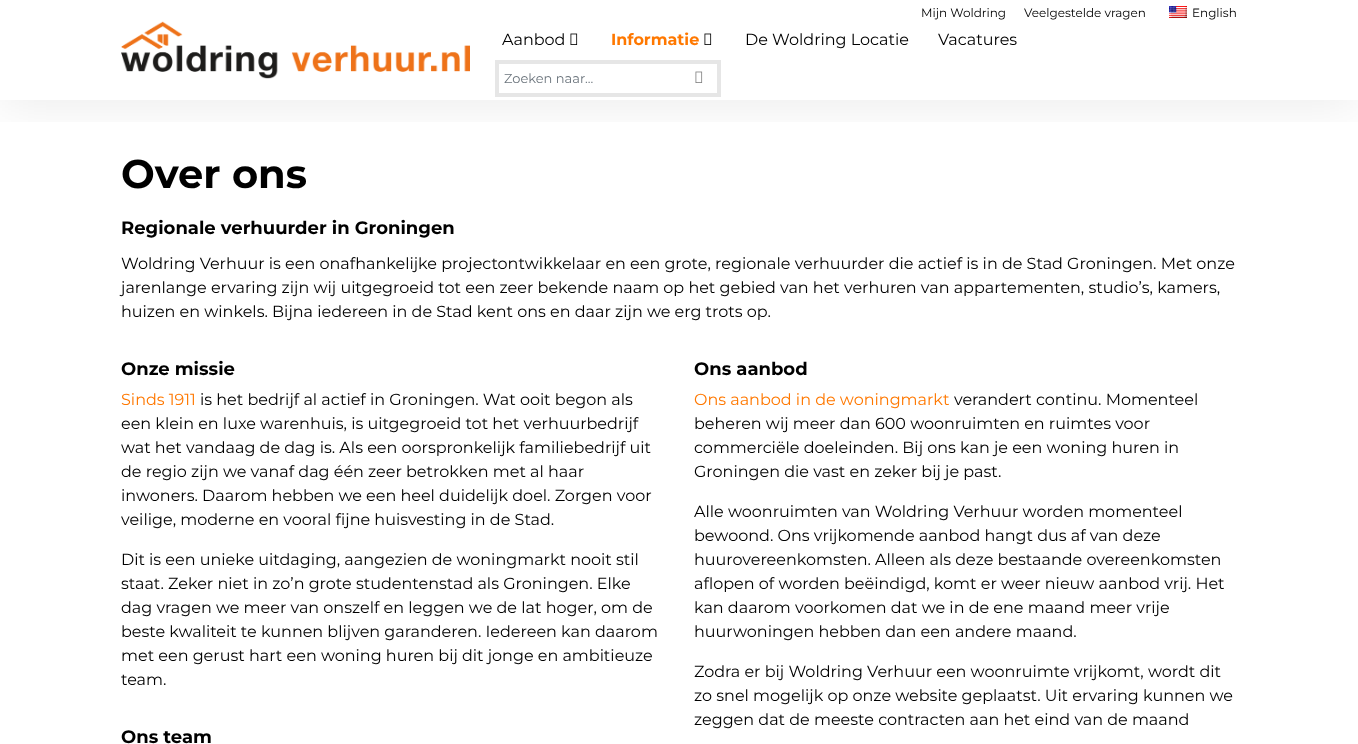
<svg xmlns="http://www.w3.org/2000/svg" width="1358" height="744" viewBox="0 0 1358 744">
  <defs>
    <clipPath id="clip1"><path d="M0 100h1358v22H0z"/></clipPath>
  </defs>
  <rect width="100%" height="100%" fill="#fff"/>
  <g clip-path="url(#clip1)">
    <path d="M0 5h1358v100H0z" fill="#00000014" filter="blur(25px)"/>
  </g>
  <image x="121" y="21" width="349" height="58" href="img/1.png"/>
  <image x="1169" y="6" width="18" height="12" href="img/2.png"/>
  <image x="570" y="33" width="8" height="12" href="img/3.png"/>
  <image x="704" y="33" width="8" height="12" href="img/3.png"/>
  <path d="M497 62h222v33H497z" fill="none" stroke="#e6e6e6" stroke-width="4"/>
  <image x="695" y="71" width="8" height="12" href="img/4.png"/>
  <g font-family="Montserrat" font-size="12" fill="#000">
    <text x="921" y="17">Mijn Woldring</text>
    <text x="1024" y="17">Veelgestelde vragen</text>
    <text x="1192" y="17">English</text>
  </g>
  <text x="502" y="45" font-family="Montserrat" font-size="16" fill="#000">Aanbod</text>
  <text x="611" y="45" font-family="Montserrat" font-size="16" font-weight="bold" fill="#ff7800">Informatie</text>
  <g font-family="Montserrat" font-size="16" fill="#000">
    <text x="745" y="45">De Woldring Locatie</text>
    <text x="938" y="45">Vacatures</text>
  </g>
  <text x="504" y="83" font-family="Montserrat" font-size="13" fill="#6c757d">Zoeken naar...</text>
  <text x="121" y="188" font-family="Montserrat" font-size="40" font-weight="bold" fill="#000">Over ons</text>
  <text x="121" y="234" font-family="Montserrat" font-size="18" font-weight="bold" fill="#000">Regionale verhuurder in Groningen</text>
  <g font-family="Montserrat" font-size="16" fill="#000">
    <text x="121" y="269">Woldring Verhuur is een onafhankelijke projectontwikkelaar en een grote, regionale verhuurder die actief is in de Stad Groningen. Met onze</text>
    <text x="121" y="293">jarenlange ervaring zijn wij uitgegroeid tot een zeer bekende naam op het gebied van het verhuren van appartementen, studio’s, kamers,</text>
    <text x="121" y="317">huizen en winkels. Bijna iedereen in de Stad kent ons en daar zijn we erg trots op.</text>
  </g>
  <text x="121" y="375" font-family="Montserrat" font-size="18" font-weight="bold" fill="#000">Onze missie</text>
  <text x="121" y="405" font-family="Montserrat" font-size="16" fill="#ff7800">Sinds 1911</text>
  <g font-family="Montserrat" font-size="16" fill="#000">
    <text x="200" y="405">is het bedrijf al actief in Groningen. Wat ooit begon als</text>
    <text x="121" y="429">een klein en luxe warenhuis, is uitgegroeid tot het verhuurbedrijf</text>
    <text x="121" y="453">wat het vandaag de dag is. Als een oorspronkelijk familiebedrijf uit</text>
    <text x="121" y="477">de regio zijn we vanaf dag één zeer betrokken met al haar</text>
    <text x="121" y="501">inwoners. Daarom hebben we een heel duidelijk doel. Zorgen voor</text>
    <text x="121" y="525">veilige, moderne en vooral fijne huisvesting in de Stad.</text>
    <text x="121" y="565">Dit is een unieke uitdaging, aangezien de woningmarkt nooit stil</text>
    <text x="121" y="589">staat. Zeker niet in zo’n grote studentenstad als Groningen. Elke</text>
    <text x="121" y="613">dag vragen we meer van onszelf en leggen we de lat hoger, om de</text>
    <text x="121" y="637">beste kwaliteit te kunnen blijven garanderen. Iedereen kan daarom</text>
    <text x="121" y="661">met een gerust hart een woning huren bij dit jonge en ambitieuze</text>
    <text x="121" y="685">team.</text>
  </g>
  <g font-family="Montserrat" font-size="18" font-weight="bold" fill="#000">
    <text x="121" y="743">Ons team</text>
    <text x="694" y="375">Ons aanbod</text>
  </g>
  <text x="694" y="405" font-family="Montserrat" font-size="16" fill="#ff7800">Ons aanbod in de woningmarkt</text>
  <g font-family="Montserrat" font-size="16" fill="#000">
    <text x="954" y="405">verandert continu. Momenteel</text>
    <text x="694" y="429">beheren wij meer dan 600 woonruimten en ruimtes voor</text>
    <text x="694" y="453">commerciële doeleinden. Bij ons kan je een woning huren in</text>
    <text x="694" y="477">Groningen die vast en zeker bij je past.</text>
    <text x="694" y="517">Alle woonruimten van Woldring Verhuur worden momenteel</text>
    <text x="694" y="541">bewoond. Ons vrijkomende aanbod hangt dus af van deze</text>
    <text x="694" y="565">huurovereenkomsten. Alleen als deze bestaande overeenkomsten</text>
    <text x="694" y="589">aflopen of worden beëindigd, komt er weer nieuw aanbod vrij. Het</text>
    <text x="694" y="613">kan daarom voorkomen dat we in de ene maand meer vrije</text>
    <text x="694" y="637">huurwoningen hebben dan een andere maand.</text>
    <text x="694" y="677">Zodra er bij Woldring Verhuur een woonruimte vrijkomt, wordt dit</text>
    <text x="694" y="701">zo snel mogelijk op onze website geplaatst. Uit ervaring kunnen we</text>
    <text x="694" y="725">zeggen dat de meeste contracten aan het eind van de maand</text>
  </g>
</svg>
